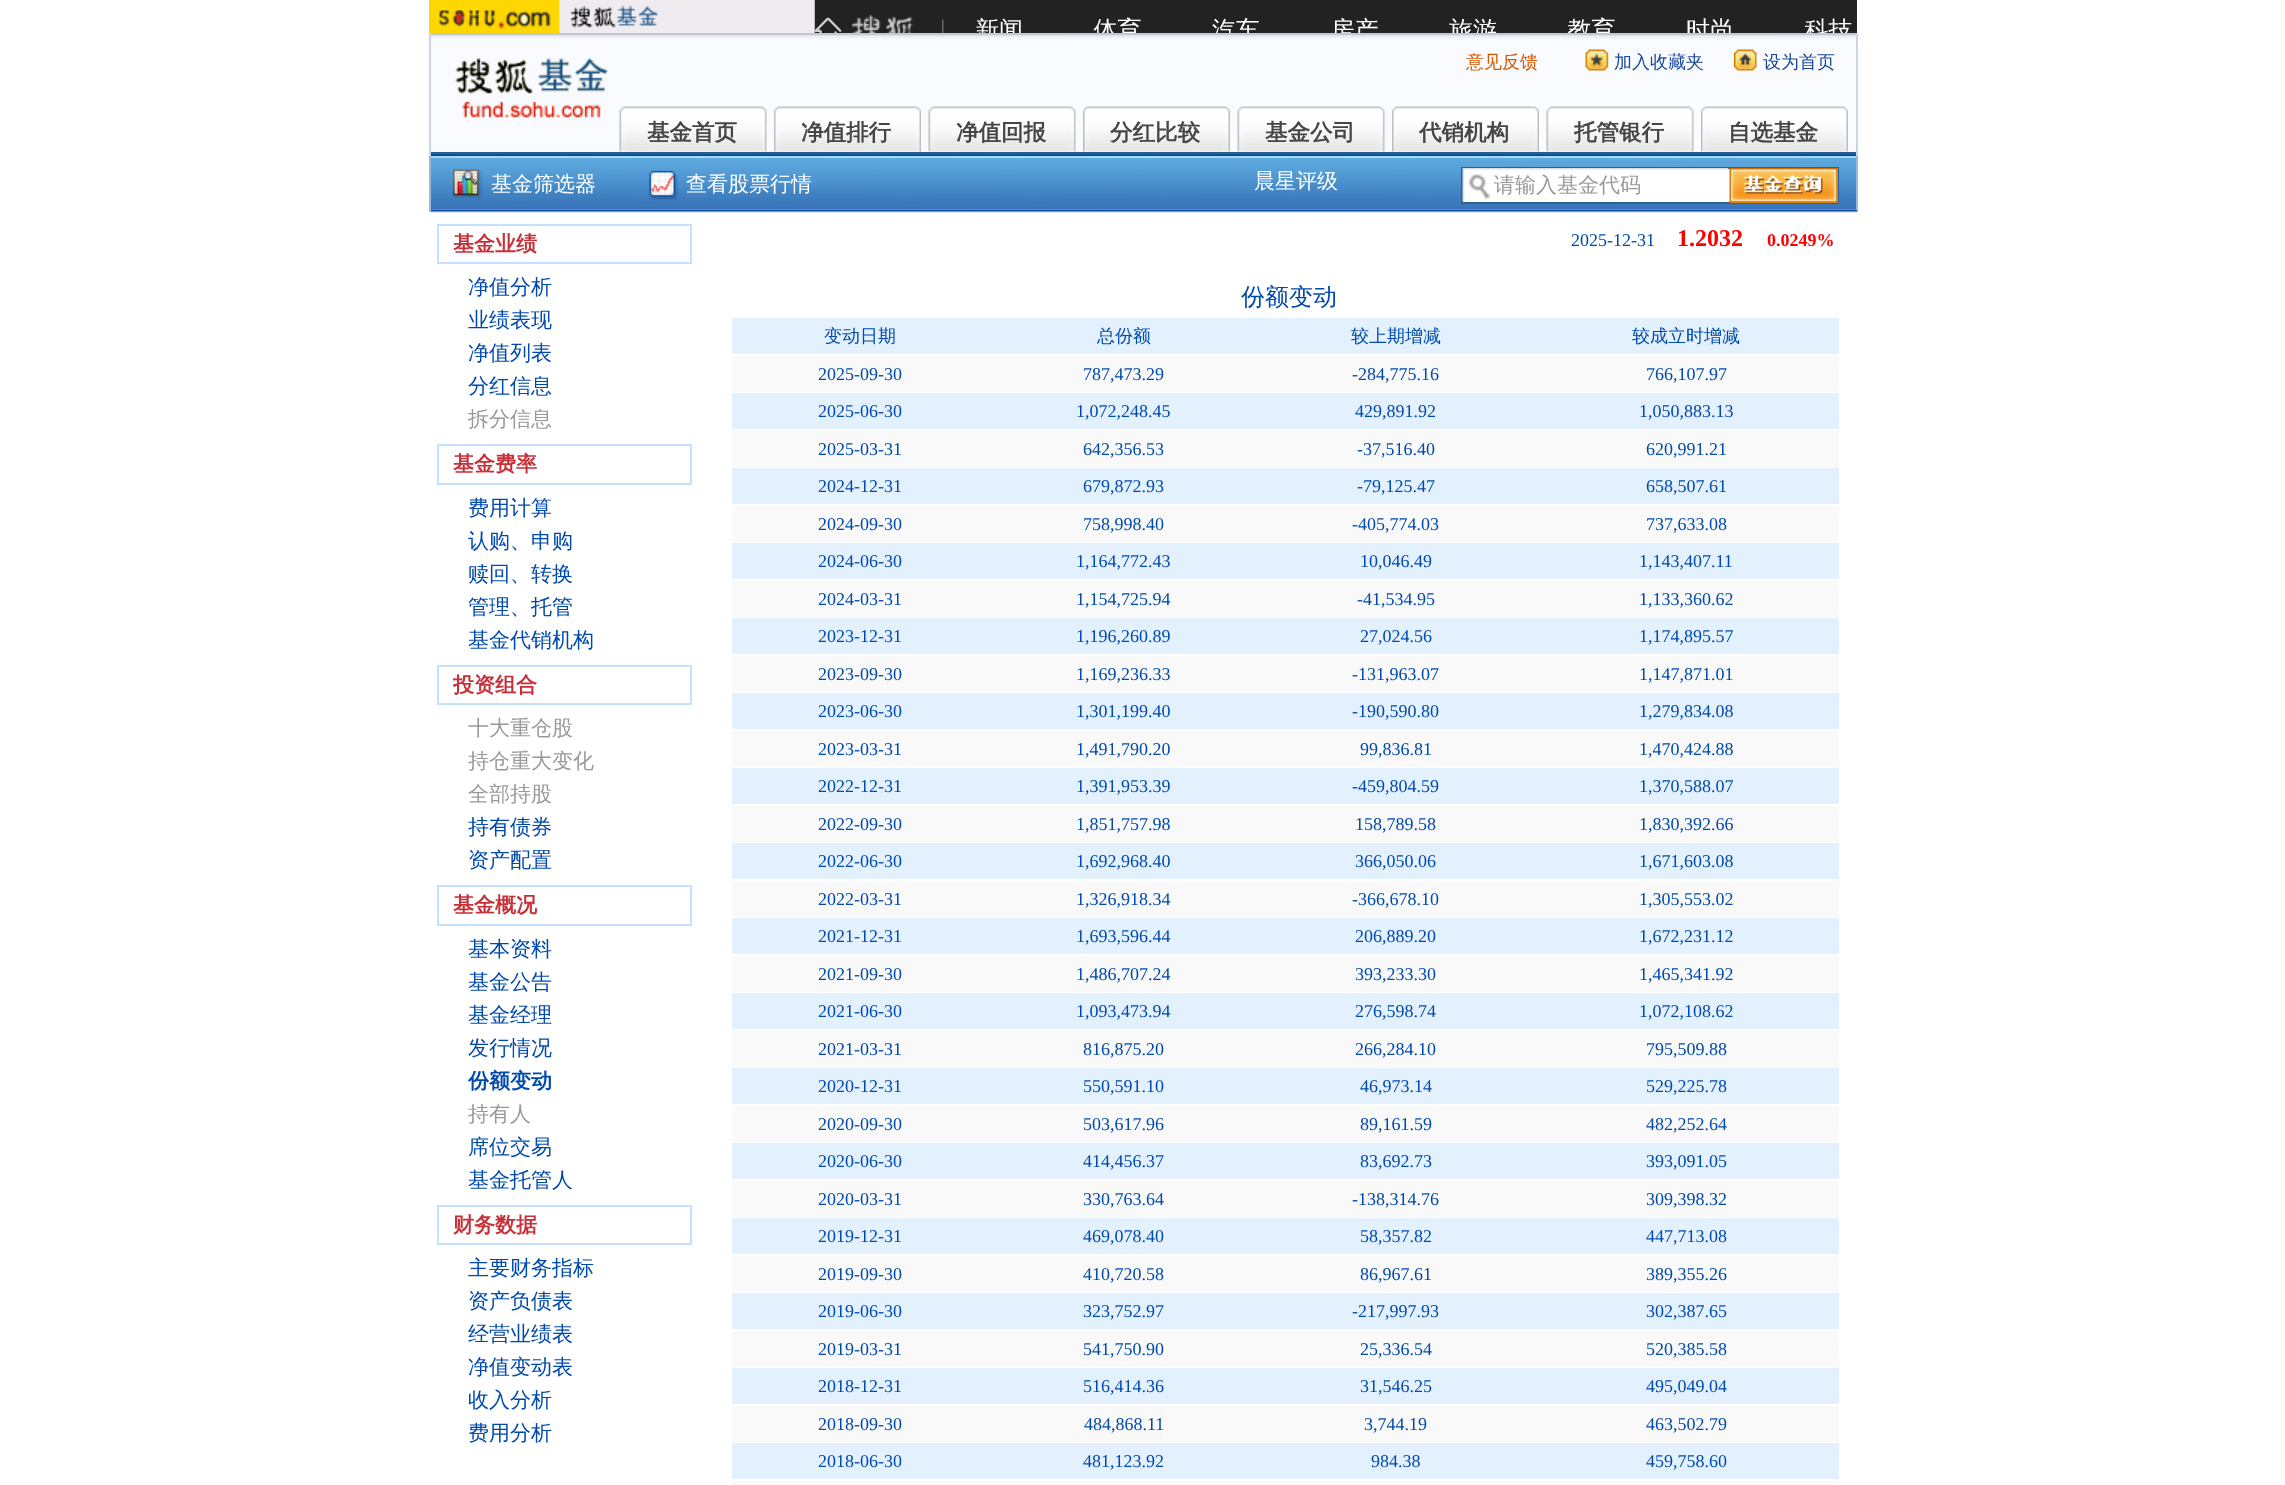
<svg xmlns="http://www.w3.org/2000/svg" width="2285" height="1485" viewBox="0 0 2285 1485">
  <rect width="100%" height="100%" fill="#fff"/>
  <image x="429" y="0" width="1428" height="33" href="img/1.png"/>
  <path d="M431 39h1425v113H431z" fill="#fafbfe"/>
  <image x="431" y="35" width="1425" height="4" href="img/2.png"/>
  <path d="M429 33h1428v2H429z" fill="#c2c7d4"/>
  <path d="M1856 33h2v123H1856z" fill="#c8d6e5"/>
  <path d="M429 33h2v123H429z" fill="#c8d6e5"/>
  <image x="455" y="58" width="153" height="60" href="img/3.png"/>
  <image x="1585" y="49" width="24" height="22" href="img/4.png"/>
  <image x="1734" y="49" width="23" height="22" href="img/5.png"/>
  <image x="619" y="106" width="148" height="46" href="img/6.png"/>
  <image x="774" y="106" width="147" height="46" href="img/7.png"/>
  <image x="928" y="106" width="148" height="46" href="img/8.png"/>
  <image x="1083" y="106" width="147" height="46" href="img/9.png"/>
  <image x="1237" y="106" width="148" height="46" href="img/8.png"/>
  <image x="1392" y="106" width="147" height="46" href="img/7.png"/>
  <image x="1546" y="106" width="148" height="46" href="img/8.png"/>
  <image x="1701" y="106" width="147" height="46" href="img/7.png"/>
  <path d="M431 154h1425v1H431z" fill="#0b5c8c"/>
  <path d="M431 152h1425v2H431z" fill="#2e5b8b"/>
  <path d="M431 155h1425v1H431z" fill="#124879"/>
  <image x="431" y="158" width="1425" height="52" href="img/10.png"/>
  <path d="M429 156h1428v2H429z" fill="#a1d8ff"/>
  <path d="M1856 156h2v56H1856z" fill="#9bb7de"/>
  <path d="M429 210h1428v2H429z" fill="#05499a"/>
  <path d="M429 156h2v56H429z" fill="#9bb7de"/>
  <image x="453" y="169" width="30" height="29" href="img/11.png"/>
  <image x="648" y="170" width="30" height="30" href="img/12.png"/>
  <path d="M1463 169h267v33H1463z" fill="#fff"/>
  <path d="M1462 168h376v35H1462z" fill="none" stroke="#296296" stroke-width="2"/>
  <image x="1462" y="168" width="266" height="33" href="img/13.png"/>
  <path d="M1730 168h108v35H1730z" fill="#f90"/>
  <image x="1729" y="168" width="109" height="35" href="img/14.png"/>
  <image x="429" y="211" width="1428" height="2" href="img/15.png"/>
  <path d="M438 225h253v38H438z" fill="none" stroke="#c6e0ff" stroke-width="2"/>
  <path d="M438 445h253v39H438z" fill="none" stroke="#c6e0ff" stroke-width="2"/>
  <path d="M438 666h253v38H438z" fill="none" stroke="#c6e0ff" stroke-width="2"/>
  <path d="M438 886h253v39H438z" fill="none" stroke="#c6e0ff" stroke-width="2"/>
  <path d="M438 1206h253v38H438z" fill="none" stroke="#c6e0ff" stroke-width="2"/>
  <path d="M732 318h1107v36H732z" fill="#e3f1ff"/>
  <path d="M732 356h1107v36H732z" fill="#f9f9f9"/>
  <path d="M732 393h1107v36H732z" fill="#e3f1ff"/>
  <path d="M732 431h1107v36H732z" fill="#f9f9f9"/>
  <path d="M732 468h1107v36H732z" fill="#e3f1ff"/>
  <path d="M732 506h1107v36H732z" fill="#f9f9f9"/>
  <path d="M732 543h1107v36H732z" fill="#e3f1ff"/>
  <path d="M732 581h1107v36H732z" fill="#f9f9f9"/>
  <path d="M732 618h1107v36H732z" fill="#e3f1ff"/>
  <path d="M732 656h1107v36H732z" fill="#f9f9f9"/>
  <path d="M732 693h1107v36H732z" fill="#e3f1ff"/>
  <path d="M732 731h1107v36H732z" fill="#f9f9f9"/>
  <path d="M732 768h1107v36H732z" fill="#e3f1ff"/>
  <path d="M732 806h1107v36H732z" fill="#f9f9f9"/>
  <path d="M732 843h1107v36H732z" fill="#e3f1ff"/>
  <path d="M732 881h1107v36H732z" fill="#f9f9f9"/>
  <path d="M732 918h1107v36H732z" fill="#e3f1ff"/>
  <path d="M732 956h1107v36H732z" fill="#f9f9f9"/>
  <path d="M732 993h1107v36H732z" fill="#e3f1ff"/>
  <path d="M732 1031h1107v36H732z" fill="#f9f9f9"/>
  <path d="M732 1068h1107v36H732z" fill="#e3f1ff"/>
  <path d="M732 1106h1107v36H732z" fill="#f9f9f9"/>
  <path d="M732 1143h1107v36H732z" fill="#e3f1ff"/>
  <path d="M732 1181h1107v36H732z" fill="#f9f9f9"/>
  <path d="M732 1218h1107v36H732z" fill="#e3f1ff"/>
  <path d="M732 1256h1107v36H732z" fill="#f9f9f9"/>
  <path d="M732 1293h1107v36H732z" fill="#e3f1ff"/>
  <path d="M732 1331h1107v36H732z" fill="#f9f9f9"/>
  <path d="M732 1368h1107v36H732z" fill="#e3f1ff"/>
  <path d="M732 1406h1107v36H732z" fill="#f9f9f9"/>
  <path d="M732 1443h1107v36H732z" fill="#e3f1ff"/>
  <path d="M732 1481h1107v4H732z" fill="#f9f9f9"/>
  <text x="1466" y="68" font-family="WenQuanYi Zen Hei" font-size="18" font-weight="500" fill="#d55800">意见反馈</text>
  <g font-family="WenQuanYi Zen Hei" font-size="18" font-weight="500" fill="#18479b">
    <text x="1614" y="68">加入收藏夹</text>
    <text x="1763" y="68">设为首页</text>
  </g>
  <g font-family="WenQuanYi Zen Hei" font-size="22.5" font-weight="bold" fill="#464646">
    <text x="647" y="140">基金首页</text>
    <text x="801" y="140">净值排行</text>
    <text x="956" y="140">净值回报</text>
    <text x="1110" y="140">分红比较</text>
    <text x="1265" y="140">基金公司</text>
    <text x="1419" y="140">代销机构</text>
    <text x="1574" y="140">托管银行</text>
    <text x="1728" y="140">自选基金</text>
  </g>
  <g font-family="WenQuanYi Zen Hei" font-size="21" font-weight="500" fill="#fff">
    <text x="491" y="191">基金筛选器</text>
    <text x="686" y="191">查看股票行情</text>
    <text x="1254" y="188">晨星评级</text>
  </g>
  <text x="1494" y="192" font-family="WenQuanYi Zen Hei" font-size="21" font-weight="500" fill="#999">请输入基金代码</text>
  <text x="453" y="251" font-family="WenQuanYi Zen Hei" font-size="21" font-weight="bold" fill="#c73039">基金业绩</text>
  <g font-family="WenQuanYi Zen Hei" font-size="21" font-weight="500" fill="#004aae">
    <text x="468" y="294">净值分析</text>
    <text x="468" y="327">业绩表现</text>
    <text x="468" y="360">净值列表</text>
    <text x="468" y="393">分红信息</text>
  </g>
  <text x="468" y="426" font-family="WenQuanYi Zen Hei" font-size="21" font-weight="500" fill="#999">拆分信息</text>
  <text x="453" y="471" font-family="WenQuanYi Zen Hei" font-size="21" font-weight="bold" fill="#c73039">基金费率</text>
  <g font-family="WenQuanYi Zen Hei" font-size="21" font-weight="500" fill="#004aae">
    <text x="468" y="515">费用计算</text>
    <text x="468" y="548">认购、申购</text>
    <text x="468" y="581">赎回、转换</text>
    <text x="468" y="614">管理、托管</text>
    <text x="468" y="647">基金代销机构</text>
  </g>
  <text x="453" y="692" font-family="WenQuanYi Zen Hei" font-size="21" font-weight="bold" fill="#c73039">投资组合</text>
  <g font-family="WenQuanYi Zen Hei" font-size="21" font-weight="500" fill="#999">
    <text x="468" y="735">十大重仓股</text>
    <text x="468" y="768">持仓重大变化</text>
    <text x="468" y="801">全部持股</text>
  </g>
  <g font-family="WenQuanYi Zen Hei" font-size="21" font-weight="500" fill="#004aae">
    <text x="468" y="834">持有债券</text>
    <text x="468" y="867">资产配置</text>
  </g>
  <text x="453" y="912" font-family="WenQuanYi Zen Hei" font-size="21" font-weight="bold" fill="#c73039">基金概况</text>
  <g font-family="WenQuanYi Zen Hei" font-size="21" font-weight="500" fill="#004aae">
    <text x="468" y="956">基本资料</text>
    <text x="468" y="989">基金公告</text>
    <text x="468" y="1022">基金经理</text>
    <text x="468" y="1055">发行情况</text>
  </g>
  <text x="468" y="1088" font-family="WenQuanYi Zen Hei" font-size="21" font-weight="bold" fill="#004aae">份额变动</text>
  <text x="468" y="1121" font-family="WenQuanYi Zen Hei" font-size="21" font-weight="500" fill="#999">持有人</text>
  <g font-family="WenQuanYi Zen Hei" font-size="21" font-weight="500" fill="#004aae">
    <text x="468" y="1154">席位交易</text>
    <text x="468" y="1187">基金托管人</text>
  </g>
  <text x="453" y="1232" font-family="WenQuanYi Zen Hei" font-size="21" font-weight="bold" fill="#c73039">财务数据</text>
  <g font-family="WenQuanYi Zen Hei" font-size="21" font-weight="500" fill="#004aae">
    <text x="468" y="1275">主要财务指标</text>
    <text x="468" y="1308">资产负债表</text>
    <text x="468" y="1341">经营业绩表</text>
    <text x="468" y="1374">净值变动表</text>
    <text x="468" y="1407">收入分析</text>
    <text x="468" y="1440">费用分析</text>
  </g>
  <text x="1571" y="246" font-family="Liberation Serif" font-size="18" fill="#004aae">2025-12-31</text>
  <text x="1677" y="246" font-family="Liberation Serif" font-size="24" font-weight="bold" fill="#f00">1.2032</text>
  <text x="1767" y="246" font-family="Liberation Serif" font-size="18" font-weight="bold" fill="#f00">0.0249%</text>
  <text x="1241" y="305" font-family="WenQuanYi Zen Hei" font-size="24" font-weight="500" fill="#004aae">份额变动</text>
  <g font-family="WenQuanYi Zen Hei" font-size="18" font-weight="500" fill="#004aae">
    <text x="824" y="342">变动日期</text>
    <text x="1097" y="342">总份额</text>
    <text x="1351" y="342">较上期增减</text>
    <text x="1632" y="342">较成立时增减</text>
  </g>
  <g font-family="Liberation Serif" font-size="18" fill="#004aae">
    <text x="818" y="380">2025-09-30</text>
    <text x="1083" y="380">787,473.29</text>
    <text x="1352" y="380">-284,775.16</text>
    <text x="1646" y="380">766,107.97</text>
    <text x="818" y="417">2025-06-30</text>
    <text x="1076" y="417">1,072,248.45</text>
    <text x="1355" y="417">429,891.92</text>
    <text x="1639" y="417">1,050,883.13</text>
    <text x="818" y="455">2025-03-31</text>
    <text x="1083" y="455">642,356.53</text>
    <text x="1357" y="455">-37,516.40</text>
    <text x="1646" y="455">620,991.21</text>
    <text x="818" y="492">2024-12-31</text>
    <text x="1083" y="492">679,872.93</text>
    <text x="1357" y="492">-79,125.47</text>
    <text x="1646" y="492">658,507.61</text>
    <text x="818" y="530">2024-09-30</text>
    <text x="1083" y="530">758,998.40</text>
    <text x="1352" y="530">-405,774.03</text>
    <text x="1646" y="530">737,633.08</text>
    <text x="818" y="567">2024-06-30</text>
    <text x="1076" y="567">1,164,772.43</text>
    <text x="1360" y="567">10,046.49</text>
    <text x="1639" y="567">1,143,407.11</text>
    <text x="818" y="605">2024-03-31</text>
    <text x="1076" y="605">1,154,725.94</text>
    <text x="1357" y="605">-41,534.95</text>
    <text x="1639" y="605">1,133,360.62</text>
    <text x="818" y="642">2023-12-31</text>
    <text x="1076" y="642">1,196,260.89</text>
    <text x="1360" y="642">27,024.56</text>
    <text x="1639" y="642">1,174,895.57</text>
    <text x="818" y="680">2023-09-30</text>
    <text x="1076" y="680">1,169,236.33</text>
    <text x="1352" y="680">-131,963.07</text>
    <text x="1639" y="680">1,147,871.01</text>
    <text x="818" y="717">2023-06-30</text>
    <text x="1076" y="717">1,301,199.40</text>
    <text x="1352" y="717">-190,590.80</text>
    <text x="1639" y="717">1,279,834.08</text>
    <text x="818" y="755">2023-03-31</text>
    <text x="1076" y="755">1,491,790.20</text>
    <text x="1360" y="755">99,836.81</text>
    <text x="1639" y="755">1,470,424.88</text>
    <text x="818" y="792">2022-12-31</text>
    <text x="1076" y="792">1,391,953.39</text>
    <text x="1352" y="792">-459,804.59</text>
    <text x="1639" y="792">1,370,588.07</text>
    <text x="818" y="830">2022-09-30</text>
    <text x="1076" y="830">1,851,757.98</text>
    <text x="1355" y="830">158,789.58</text>
    <text x="1639" y="830">1,830,392.66</text>
    <text x="818" y="867">2022-06-30</text>
    <text x="1076" y="867">1,692,968.40</text>
    <text x="1355" y="867">366,050.06</text>
    <text x="1639" y="867">1,671,603.08</text>
    <text x="818" y="905">2022-03-31</text>
    <text x="1076" y="905">1,326,918.34</text>
    <text x="1352" y="905">-366,678.10</text>
    <text x="1639" y="905">1,305,553.02</text>
    <text x="818" y="942">2021-12-31</text>
    <text x="1076" y="942">1,693,596.44</text>
    <text x="1355" y="942">206,889.20</text>
    <text x="1639" y="942">1,672,231.12</text>
    <text x="818" y="980">2021-09-30</text>
    <text x="1076" y="980">1,486,707.24</text>
    <text x="1355" y="980">393,233.30</text>
    <text x="1639" y="980">1,465,341.92</text>
    <text x="818" y="1017">2021-06-30</text>
    <text x="1076" y="1017">1,093,473.94</text>
    <text x="1355" y="1017">276,598.74</text>
    <text x="1639" y="1017">1,072,108.62</text>
    <text x="818" y="1055">2021-03-31</text>
    <text x="1083" y="1055">816,875.20</text>
    <text x="1355" y="1055">266,284.10</text>
    <text x="1646" y="1055">795,509.88</text>
    <text x="818" y="1092">2020-12-31</text>
    <text x="1083" y="1092">550,591.10</text>
    <text x="1360" y="1092">46,973.14</text>
    <text x="1646" y="1092">529,225.78</text>
    <text x="818" y="1130">2020-09-30</text>
    <text x="1083" y="1130">503,617.96</text>
    <text x="1360" y="1130">89,161.59</text>
    <text x="1646" y="1130">482,252.64</text>
    <text x="818" y="1167">2020-06-30</text>
    <text x="1083" y="1167">414,456.37</text>
    <text x="1360" y="1167">83,692.73</text>
    <text x="1646" y="1167">393,091.05</text>
    <text x="818" y="1205">2020-03-31</text>
    <text x="1083" y="1205">330,763.64</text>
    <text x="1352" y="1205">-138,314.76</text>
    <text x="1646" y="1205">309,398.32</text>
    <text x="818" y="1242">2019-12-31</text>
    <text x="1083" y="1242">469,078.40</text>
    <text x="1360" y="1242">58,357.82</text>
    <text x="1646" y="1242">447,713.08</text>
    <text x="818" y="1280">2019-09-30</text>
    <text x="1083" y="1280">410,720.58</text>
    <text x="1360" y="1280">86,967.61</text>
    <text x="1646" y="1280">389,355.26</text>
    <text x="818" y="1317">2019-06-30</text>
    <text x="1083" y="1317">323,752.97</text>
    <text x="1352" y="1317">-217,997.93</text>
    <text x="1646" y="1317">302,387.65</text>
    <text x="818" y="1355">2019-03-31</text>
    <text x="1083" y="1355">541,750.90</text>
    <text x="1360" y="1355">25,336.54</text>
    <text x="1646" y="1355">520,385.58</text>
    <text x="818" y="1392">2018-12-31</text>
    <text x="1083" y="1392">516,414.36</text>
    <text x="1360" y="1392">31,546.25</text>
    <text x="1646" y="1392">495,049.04</text>
    <text x="818" y="1430">2018-09-30</text>
    <text x="1084" y="1430">484,868.11</text>
    <text x="1364" y="1430">3,744.19</text>
    <text x="1646" y="1430">463,502.79</text>
    <text x="818" y="1467">2018-06-30</text>
    <text x="1083" y="1467">481,123.92</text>
    <text x="1371" y="1467">984.38</text>
    <text x="1646" y="1467">459,758.60</text>
  </g>
</svg>
